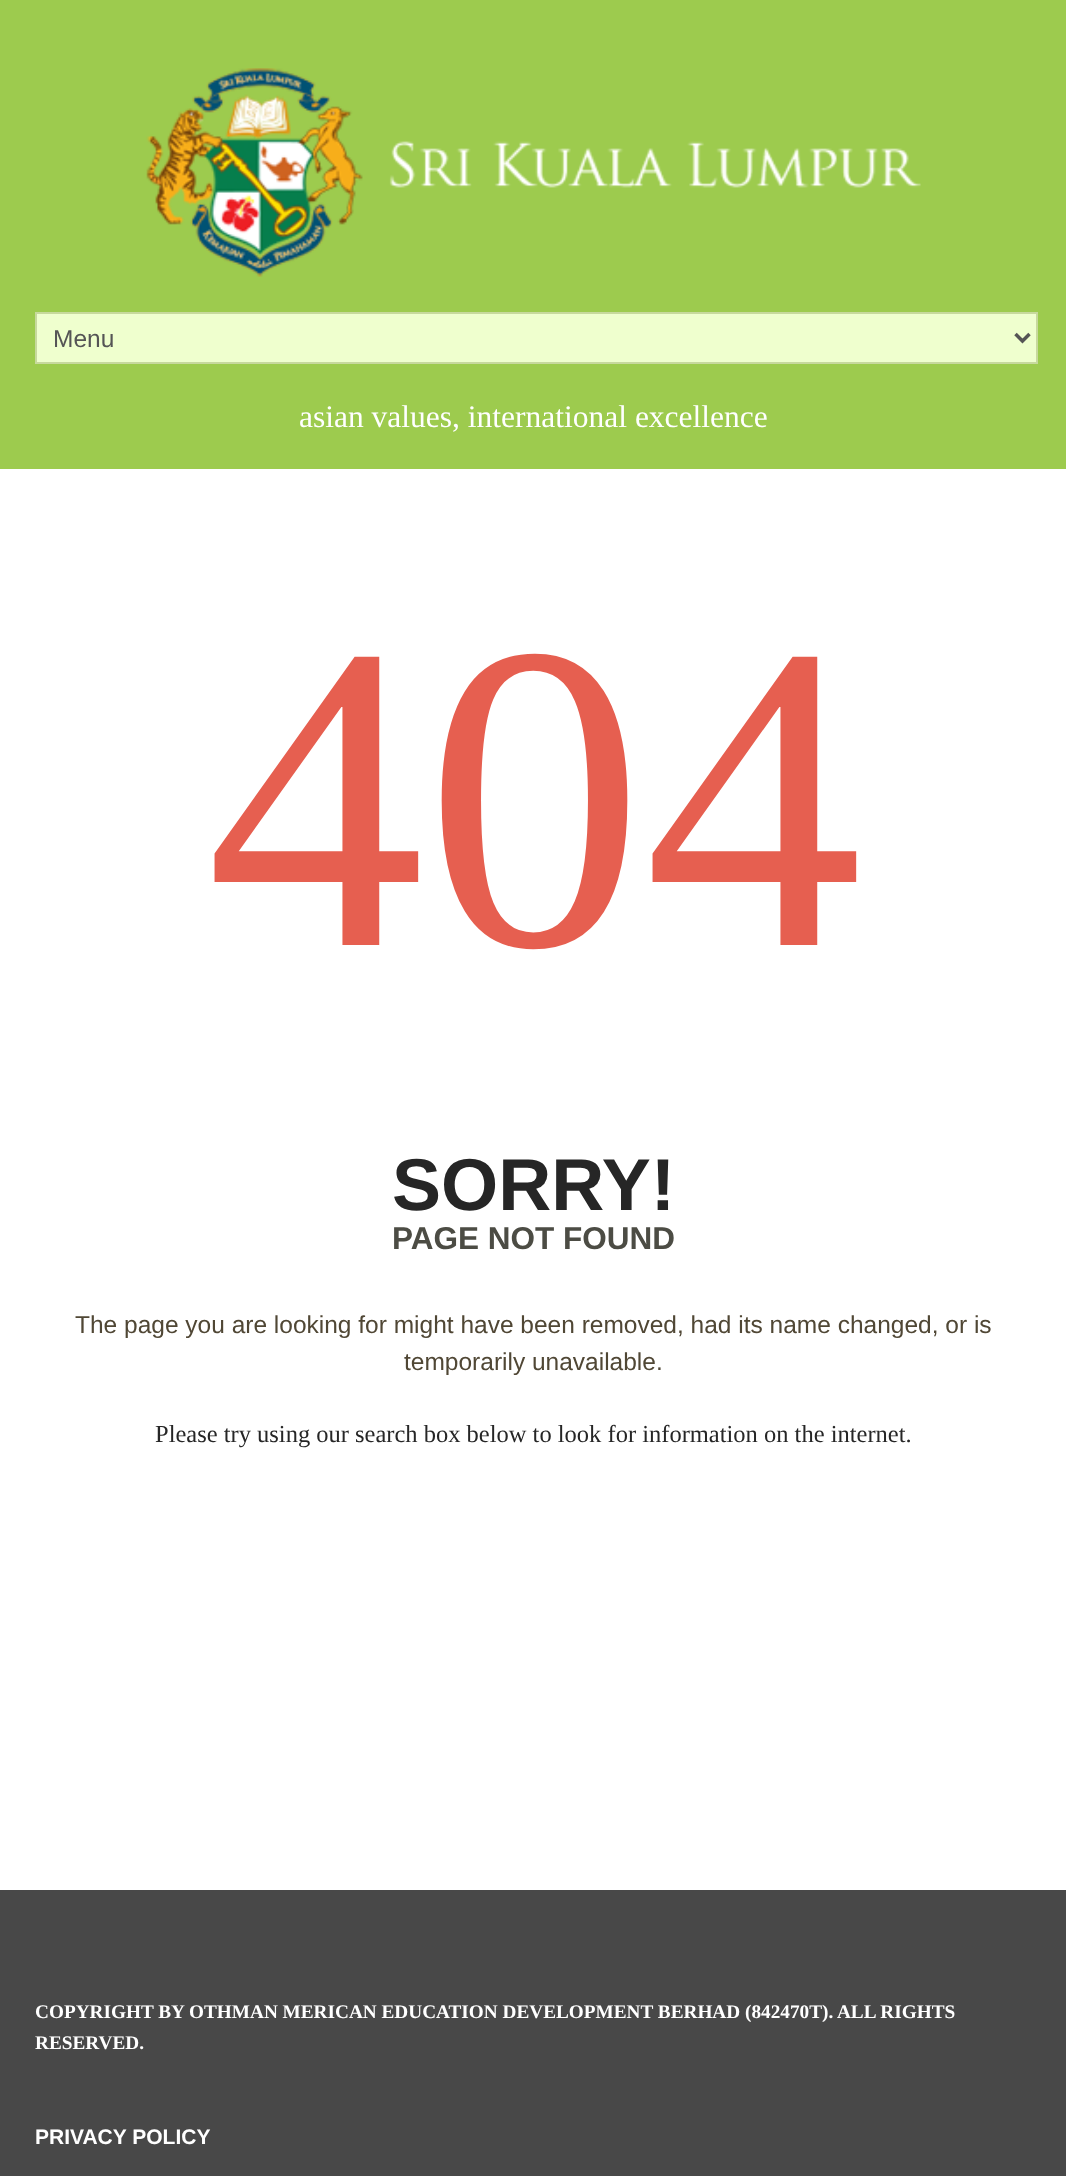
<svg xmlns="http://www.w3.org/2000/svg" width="1066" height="2176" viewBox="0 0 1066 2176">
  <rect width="100%" height="100%" fill="#fff"/>
  <path d="M0 0h1066v469H0z" fill="#9dcb4e"/>
  <image x="146" y="68" width="775" height="209" href="img/1.png"/>
  <path d="M36 313h1001v50H36z" fill="#efffce" stroke="#c7d99d" stroke-width="2"/>
  <path d="M1015.5 334L1022.5 341L1029.5 334" fill="none" stroke="#555" stroke-width="3.5"/>
  <path d="M0 1890h1066v286H0z" fill="#484848"/>
  <text x="53" y="347" font-family="Liberation Sans" font-size="24.5" fill="#555">Menu</text>
  <text x="299" y="427" font-family="Liberation Serif" font-size="31.5" fill="#fff">asian values, international excellence</text>
  <text x="206" y="945" font-family="Liberation Serif" font-size="438" fill="#e65f50">404</text>
  <text x="392" y="1210" font-family="Liberation Sans" font-size="73.5" font-weight="bold" fill="#262626">SORRY!</text>
  <text x="392" y="1249" font-family="Liberation Sans" font-size="31.5" font-weight="bold" fill="#4c4c44">PAGE NOT FOUND</text>
  <g font-family="Liberation Sans" font-size="24.5" fill="#504735">
    <text x="75" y="1333">The page you are looking for might have been removed, had its name changed, or is</text>
    <text x="404" y="1370">temporarily unavailable.</text>
  </g>
  <text x="155" y="1442" font-family="Liberation Serif" font-size="24.5" fill="#262626">Please try using our search box below to look for information on the internet.</text>
  <g font-family="Liberation Serif" font-size="19.25" font-weight="bold" fill="#fff">
    <text x="35" y="2018">COPYRIGHT BY OTHMAN MERICAN EDUCATION DEVELOPMENT BERHAD (842470T). ALL RIGHTS</text>
    <text x="35" y="2049">RESERVED.</text>
  </g>
  <text x="35" y="2144" font-family="Liberation Sans" font-size="21" font-weight="bold" fill="#fff">PRIVACY POLICY</text>
</svg>
